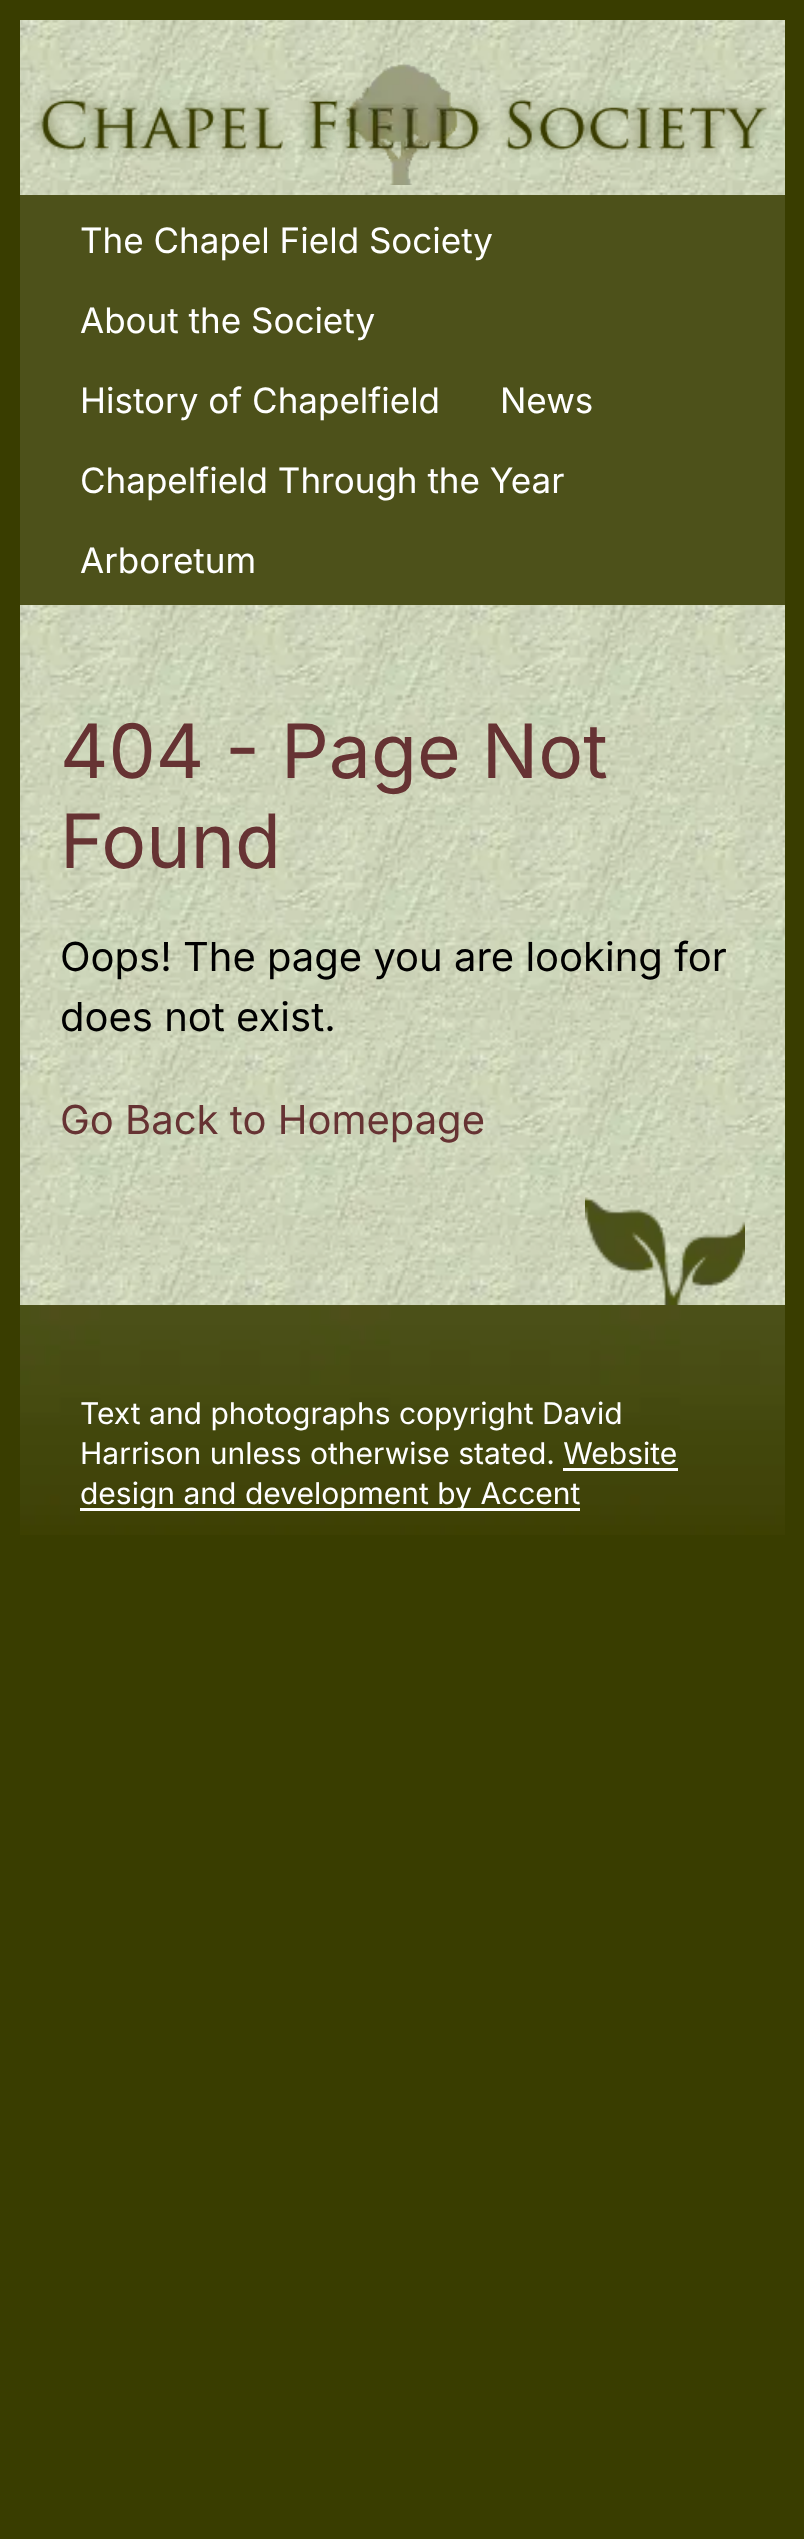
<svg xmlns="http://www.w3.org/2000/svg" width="804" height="2539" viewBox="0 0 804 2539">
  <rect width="100%" height="100%" fill="#393d00"/>
  <image x="20" y="20" width="765" height="175" href="img/1.png"/>
  <image x="33" y="64" width="738" height="121" href="img/2.png"/>
  <path d="M20 195h765v410H20z" fill="#4d511a"/>
  <image x="20" y="605" width="765" height="700" href="img/3.png"/>
  <image x="585" y="1197" width="160" height="108" href="img/4.png"/>
  <image x="20" y="1305" width="765" height="230" href="img/5.png"/>
  <path d="M563 1468h115v3H563z" fill="#fff"/>
  <path d="M80 1508h500v3H80z" fill="#fff"/>
  <g font-family="Inter" font-size="35" fill="#fff">
    <text x="80" y="253">The Chapel Field Society</text>
    <text x="80" y="333">About the Society</text>
    <text x="80" y="413">History of Chapelfield</text>
    <text x="500" y="413">News</text>
    <text x="80" y="493">Chapelfield Through the Year</text>
    <text x="80" y="573">Arboretum</text>
  </g>
  <g font-family="Inter" font-size="75" fill="#633">
    <text x="60" y="778">404 - Page Not</text>
    <text x="60" y="868">Found</text>
  </g>
  <g font-family="Inter" font-size="40" fill="#000">
    <text x="60" y="971">Oops! The page you are looking for</text>
    <text x="60" y="1031">does not exist.</text>
  </g>
  <text x="60" y="1134" font-family="Inter" font-size="40" fill="#633">Go Back to Homepage</text>
  <g font-family="Inter" font-size="30" fill="#fff">
    <text x="80" y="1424">Text and photographs copyright David</text>
    <text x="80" y="1464">Harrison unless otherwise stated. Website</text>
    <text x="80" y="1504">design and development by Accent</text>
  </g>
</svg>
